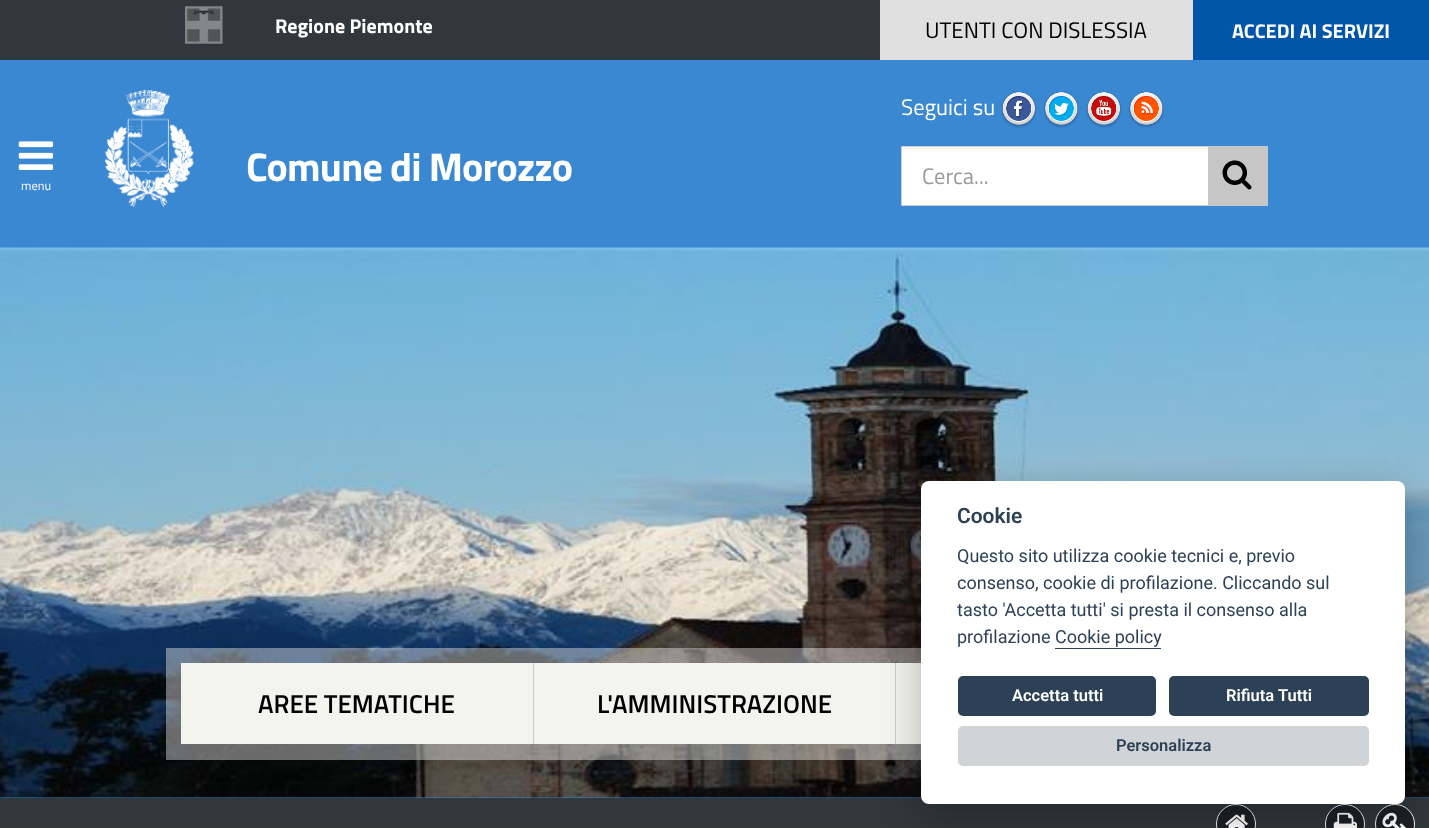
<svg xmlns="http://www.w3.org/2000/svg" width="1429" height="828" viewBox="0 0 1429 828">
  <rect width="100%" height="100%" fill="#3a87d2"/>
  <path d="M0 0h880v60H0z" fill="#30373d"/>
  <image x="185" y="6" width="38" height="38" href="img/1.png"/>
  <path d="M1193 0h236v60H1193z" fill="#0055a9"/>
  <path d="M880 0h313v60H880z" fill="#e0e0e0"/>
  <image x="105" y="90" width="89" height="118" href="img/2.png"/>
  <image x="1001" y="92" width="36" height="36" href="img/3.png"/>
  <image x="1043" y="92" width="36" height="36" href="img/4.png"/>
  <image x="1086" y="92" width="36" height="36" href="img/5.png"/>
  <image x="1128" y="92" width="36" height="36" href="img/6.png"/>
  <path d="M902 147h306v58H902z" fill="#fff"/>
  <path d="M903 148h305v1H903z" fill="#ececec"/>
  <path d="M901.5 146.5h366v59H901.5z" fill="none" stroke="#ccc"/>
  <path d="M1208 146h60v60H1208z" fill="#c6c6c6"/>
  <image x="1222" y="160" width="30" height="30" href="img/7.png"/>
  <image x="18" y="141" width="36" height="29" href="img/8.png"/>
  <image x="0" y="247" width="1429" height="551" href="img/9.png"/>
  <path d="M166 648h755v112H166z" fill="#ffffff66"/>
  <path d="M181 663h352v81H181z" fill="#f4f4ef"/>
  <path d="M533 663h1v81H533z" fill="#ccc"/>
  <path d="M534 663h361v81H534z" fill="#f4f4ef"/>
  <path d="M895 663h1v81H895z" fill="#ccc"/>
  <path d="M896 663h25v81H896z" fill="#f4f4ef"/>
  <path d="M0 798h1429v30H0z" fill="#30373d"/>
  <circle cx="1236" cy="824" r="19.5" fill="#1c2024" stroke="#f2f2f2"/>
  <image x="1225" y="814" width="23" height="14" href="img/10.png"/>
  <circle cx="1345" cy="824" r="19.5" fill="#1c2024" stroke="#f2f2f2"/>
  <image x="1333" y="812" width="24" height="16" href="img/11.png"/>
  <circle cx="1395" cy="824" r="19.5" fill="#1c2024" stroke="#f2f2f2"/>
  <image x="1382" y="812" width="24" height="16" href="img/12.png"/>
  <rect x="921" y="494" width="484" height="322" rx="8" fill="#02020347" filter="blur(19px)"/>
  <rect x="921" y="481" width="484" height="323" rx="8" fill="#fff"/>
  <path d="M1055 648h106v1H1055z" fill="#2d4156"/>
  <rect x="958" y="676" width="198" height="40" rx="5" fill="#2d4156"/>
  <rect x="1169" y="676" width="200" height="40" rx="5" fill="#2d4156"/>
  <rect x="958" y="726" width="411" height="40" rx="5" fill="#d0d4d7"/>
  <g font-family="Titillium Web" font-size="20" font-weight="bold" fill="#fff">
    <text x="275" y="33">Regione Piemonte</text>
    <text x="1232" y="38">ACCEDI AI SERVIZI</text>
  </g>
  <text x="925" y="38" font-family="Titillium Web" font-size="22.5" fill="#000">UTENTI CON DISLESSIA</text>
  <text x="246" y="181" font-family="Titillium Web" font-size="40" font-weight="bold" letter-spacing="-0.8" fill="#fff">Comune di Morozzo</text>
  <text x="901" y="115" font-family="Titillium Web" font-size="22.5" fill="#fff">Seguici su</text>
  <text x="922" y="184" font-family="Titillium Web" font-size="22.5" fill="#999">Cerca...</text>
  <text x="21" y="190" font-family="Titillium Web" font-size="12.5" fill="#fff">menu</text>
  <g font-family="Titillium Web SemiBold" font-size="25.9" font-weight="600" fill="#000">
    <text x="258" y="713">AREE TEMATICHE</text>
    <text x="597" y="713">L'AMMINISTRAZIONE</text>
  </g>
  <text x="957" y="523" font-family="Roboto" font-size="21" font-weight="600" fill="#2d4156">Cookie</text>
  <g font-family="Roboto" font-size="18" fill="#2d4156">
    <text x="957" y="562">Questo sito utilizza cookie tecnici e, previo</text>
    <text x="957" y="589">consenso, cookie di profilazione. Cliccando sul</text>
    <text x="957" y="616">tasto 'Accetta tutti' si presta il consenso alla</text>
    <text x="957" y="643">profilazione Cookie policy</text>
  </g>
  <g font-family="Roboto" font-size="16.5" font-weight="600" fill="#fff">
    <text x="1012" y="701">Accetta tutti</text>
    <text x="1226" y="701">Rifiuta Tutti</text>
  </g>
  <text x="1116" y="751" font-family="Roboto" font-size="16.5" font-weight="600" fill="#2d4156">Personalizza</text>
</svg>
